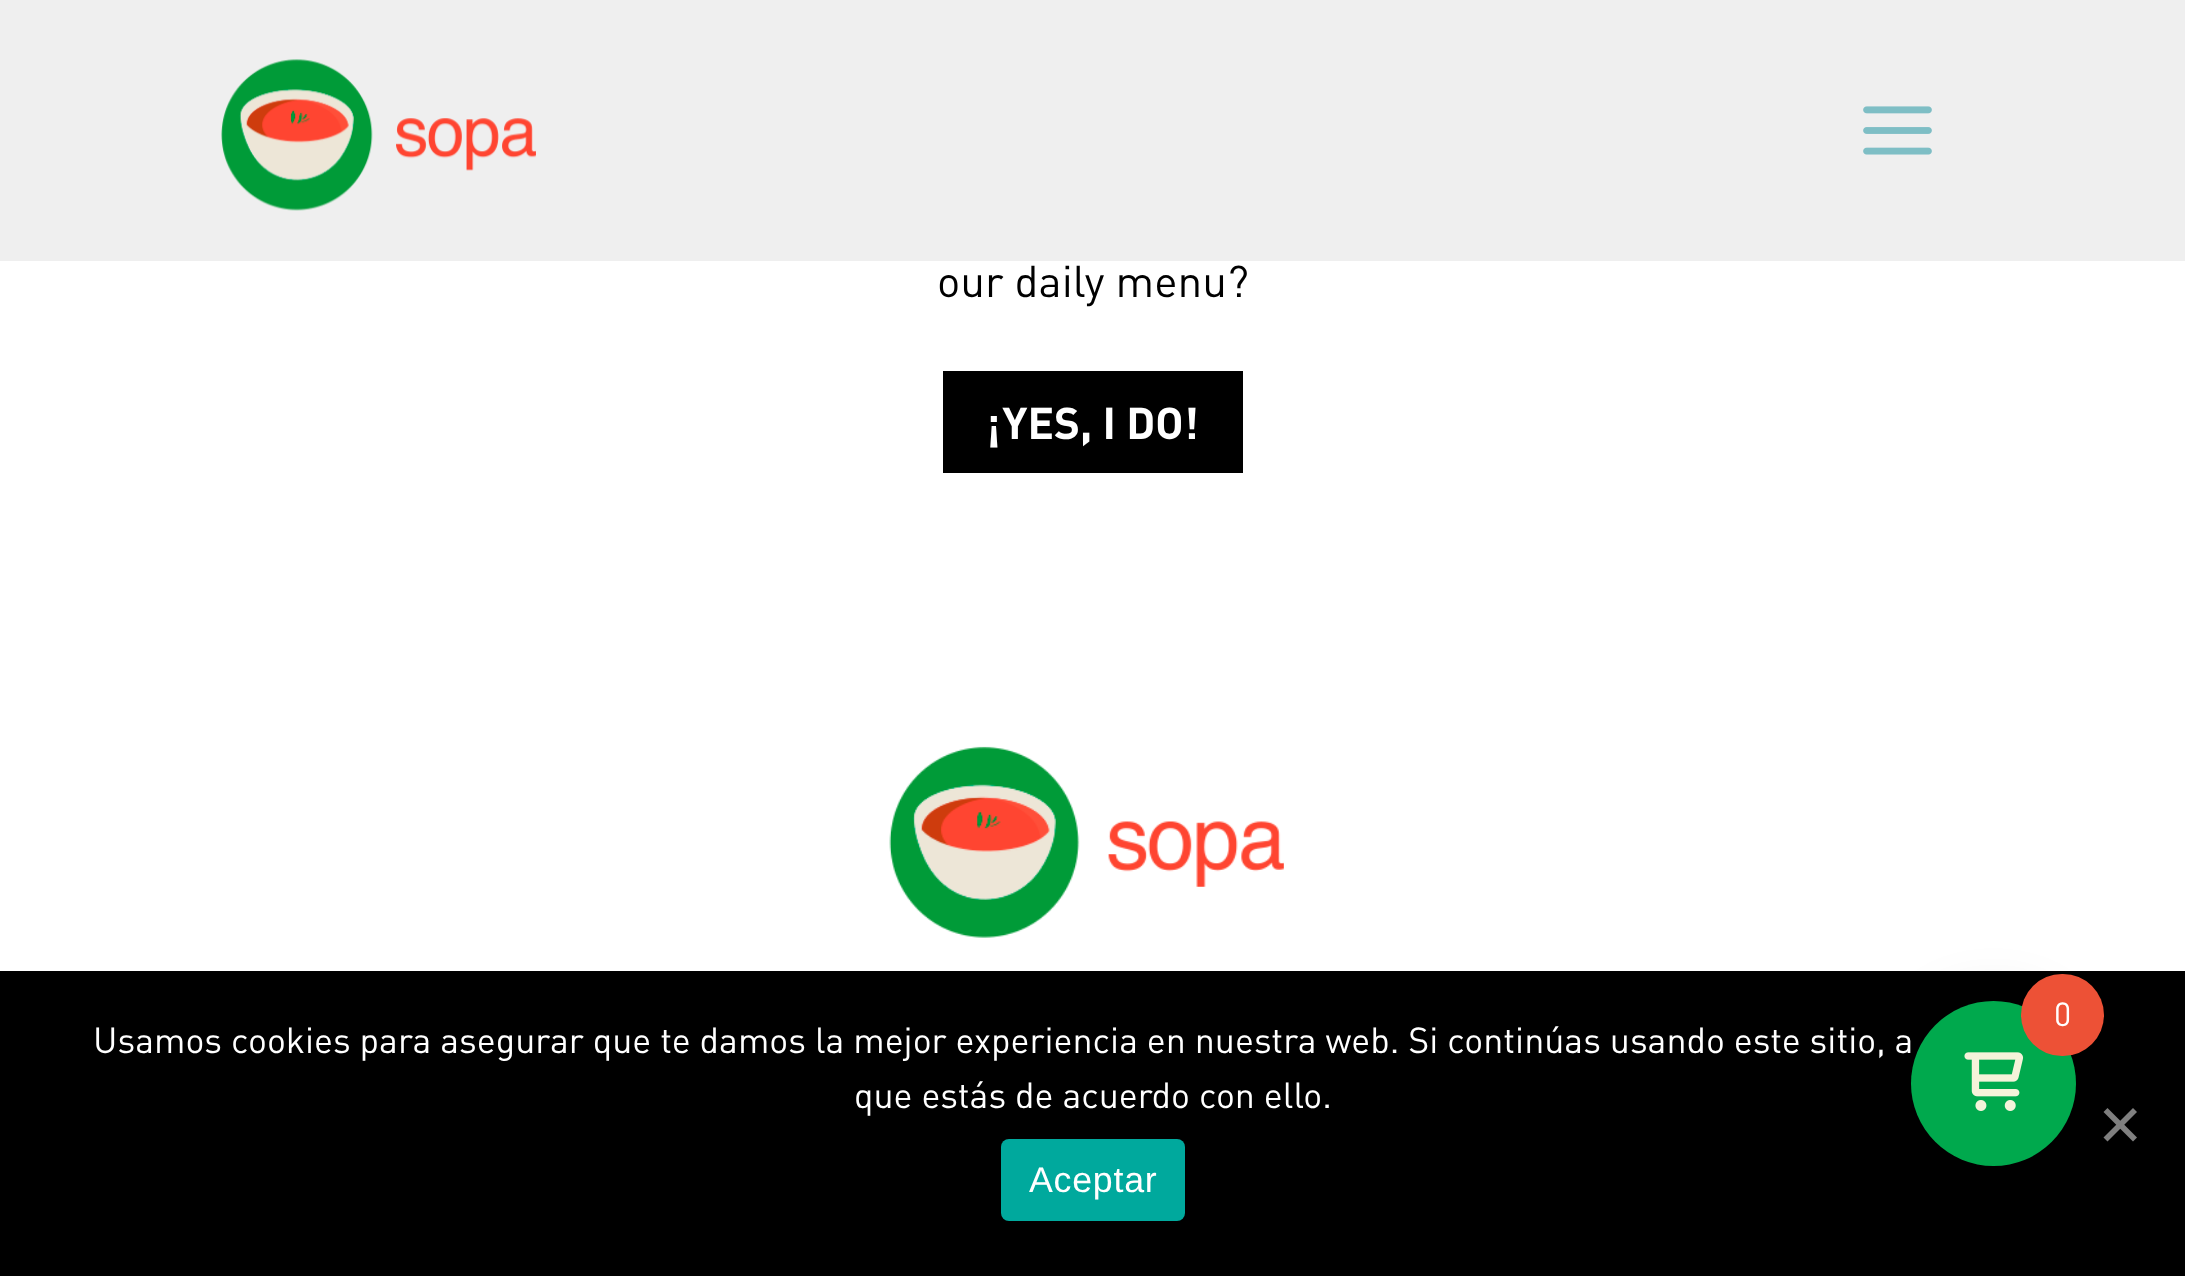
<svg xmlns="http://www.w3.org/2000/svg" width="2185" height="1276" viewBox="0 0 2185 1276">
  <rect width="100%" height="100%" fill="#fff"/>
  <path d="M0 0h2185v261H0z" fill="#efefef"/>
  <image x="221" y="59" width="315" height="152" href="img/1.png"/>
  <image x="1863" y="106" width="69" height="49" href="img/2.png"/>
  <path d="M943 371h300v102H943z" fill="#000"/>
  <image x="889" y="746" width="395" height="192" href="img/3.png"/>
  <path d="M0 971h2185v305H0z" fill="#000"/>
  <path d="M2133 1108L2137 1112L2107.5 1141.5L2103.5 1137.5Z" fill="#808080"/>
  <path d="M2103.5 1112L2107.5 1108L2137 1137.5L2133 1141.5Z" fill="#808080"/>
  <rect x="1911" y="1001" width="165" height="165" rx="82.5" fill="#00000026" filter="blur(27.5px)"/>
  <circle cx="1993.5" cy="1083.5" r="82.5" fill="#00a94d"/>
  <image x="1964" y="1052" width="60" height="59" href="img/4.png"/>
  <rect x="2021" y="974" width="83" height="82" rx="41" fill="#ed5136"/>
  <rect x="1001" y="1139" width="184" height="82" rx="8" fill="#00a99d"/>
  <text x="937" y="297" font-family="DIN" font-size="44" fill="#000">our daily menu?</text>
  <text x="987" y="439" font-family="DIN" font-size="44" font-weight="bold" fill="#fff">¡YES, I DO!</text>
  <text x="2054" y="1026" font-family="DIN" font-size="33" fill="#fff">0</text>
  <g font-family="DIN" font-size="35.75" fill="#fff">
    <text x="93" y="1053">Usamos cookies para asegurar que te damos la mejor experiencia en nuestra web. Si continúas usando este sitio, a</text>
    <text x="854" y="1108">que estás de acuerdo con ello.</text>
  </g>
  <text x="1029" y="1192" font-family="Liberation Sans" font-size="35.75" letter-spacing="0.75" fill="#fff">Aceptar</text>
</svg>
